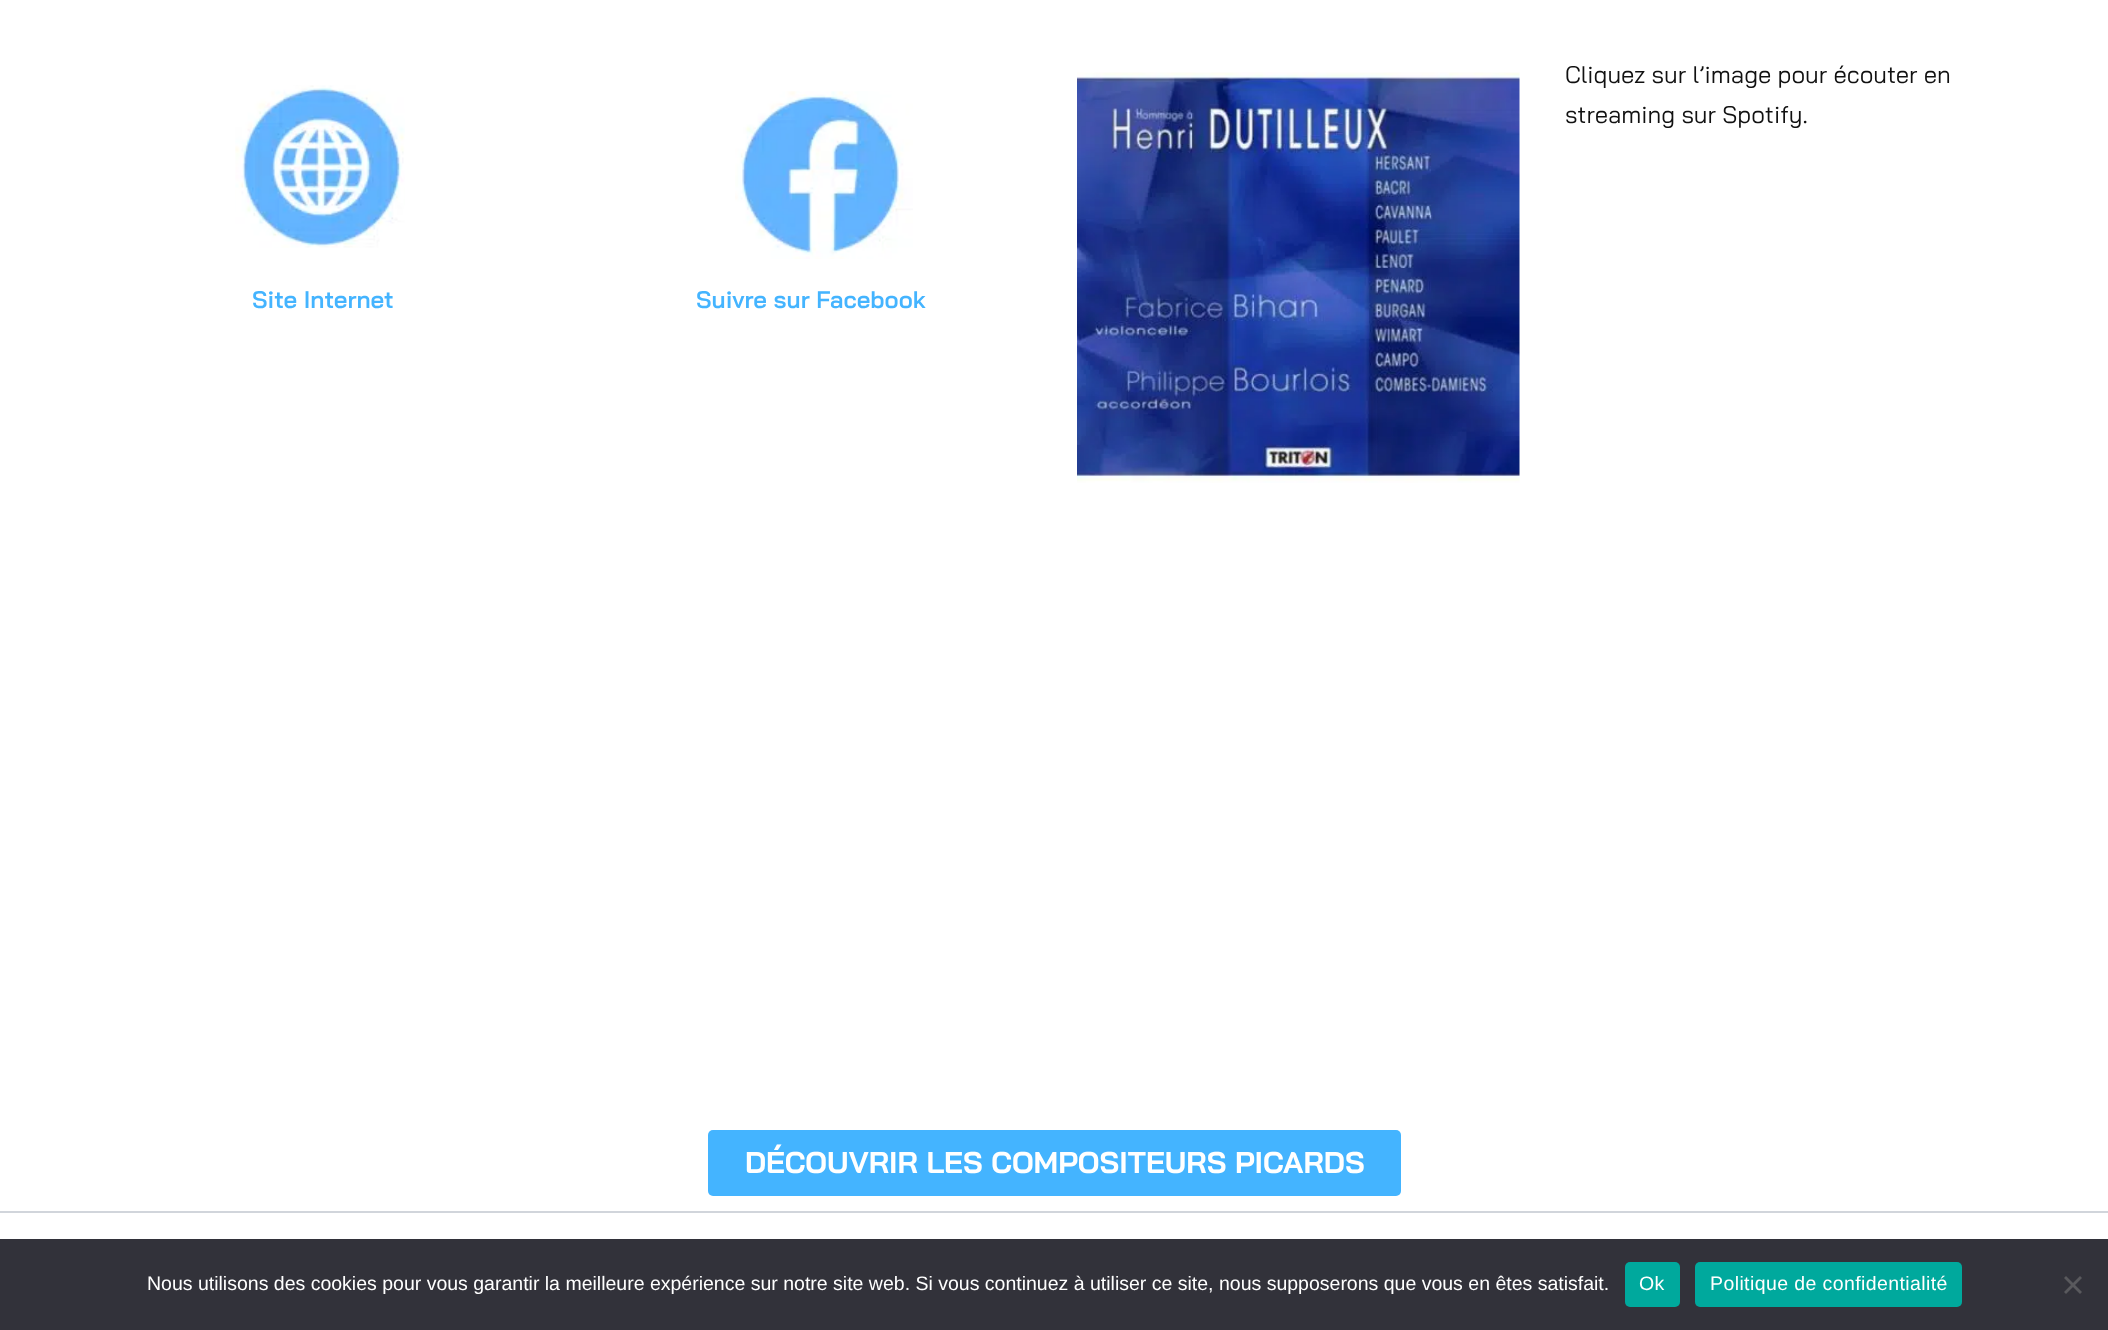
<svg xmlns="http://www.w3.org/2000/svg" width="2108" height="1330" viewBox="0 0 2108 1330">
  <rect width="100%" height="100%" fill="#fff"/>
  <image x="235" y="85" width="170" height="163" href="img/1.png"/>
  <image x="735" y="91" width="178" height="168" href="img/2.png"/>
  <image x="1077" y="72" width="443" height="411" href="img/3.png"/>
  <rect x="708" y="1130" width="693" height="66" rx="5" fill="#44b4ff"/>
  <path d="M0 1211h2108v2H0z" fill="#d1d5db"/>
  <path d="M0 1239h2108v91H0z" fill="#32323a"/>
  <rect x="1625" y="1262" width="55" height="45" rx="5" fill="#00a99d"/>
  <rect x="1695" y="1262" width="267" height="45" rx="5" fill="#00a99d"/>
  <path d="M2080 1276L2082 1278L2066 1294L2064 1292Z" fill="#59595d"/>
  <path d="M2064 1278L2066 1276L2082 1292L2080 1294Z" fill="#59595d"/>
  <g font-family="Bai Jamjuree" font-size="24" font-weight="600" fill="#44b4ff">
    <text x="252" y="308">Site Internet</text>
    <text x="696" y="308">Suivre sur Facebook</text>
  </g>
  <g font-family="Bai Jamjuree" font-size="24" fill="#111">
    <text x="1565" y="83">Cliquez sur l’image pour écouter en</text>
    <text x="1565" y="123">streaming sur Spotify.</text>
  </g>
  <text x="745" y="1173" font-family="Bai Jamjuree" font-size="30" font-weight="bold" fill="#fff">DÉCOUVRIR LES COMPOSITEURS PICARDS</text>
  <text x="147" y="1290" font-family="Liberation Sans" font-size="19.5" fill="#fff">Nous utilisons des cookies pour vous garantir la meilleure expérience sur notre site web. Si vous continuez à utiliser ce site, nous supposerons que vous en êtes satisfait.</text>
  <g font-family="Liberation Sans" font-size="19.5" letter-spacing="0.4" fill="#fff">
    <text x="1639" y="1290">Ok</text>
    <text x="1710" y="1290">Politique de confidentialité</text>
  </g>
</svg>
